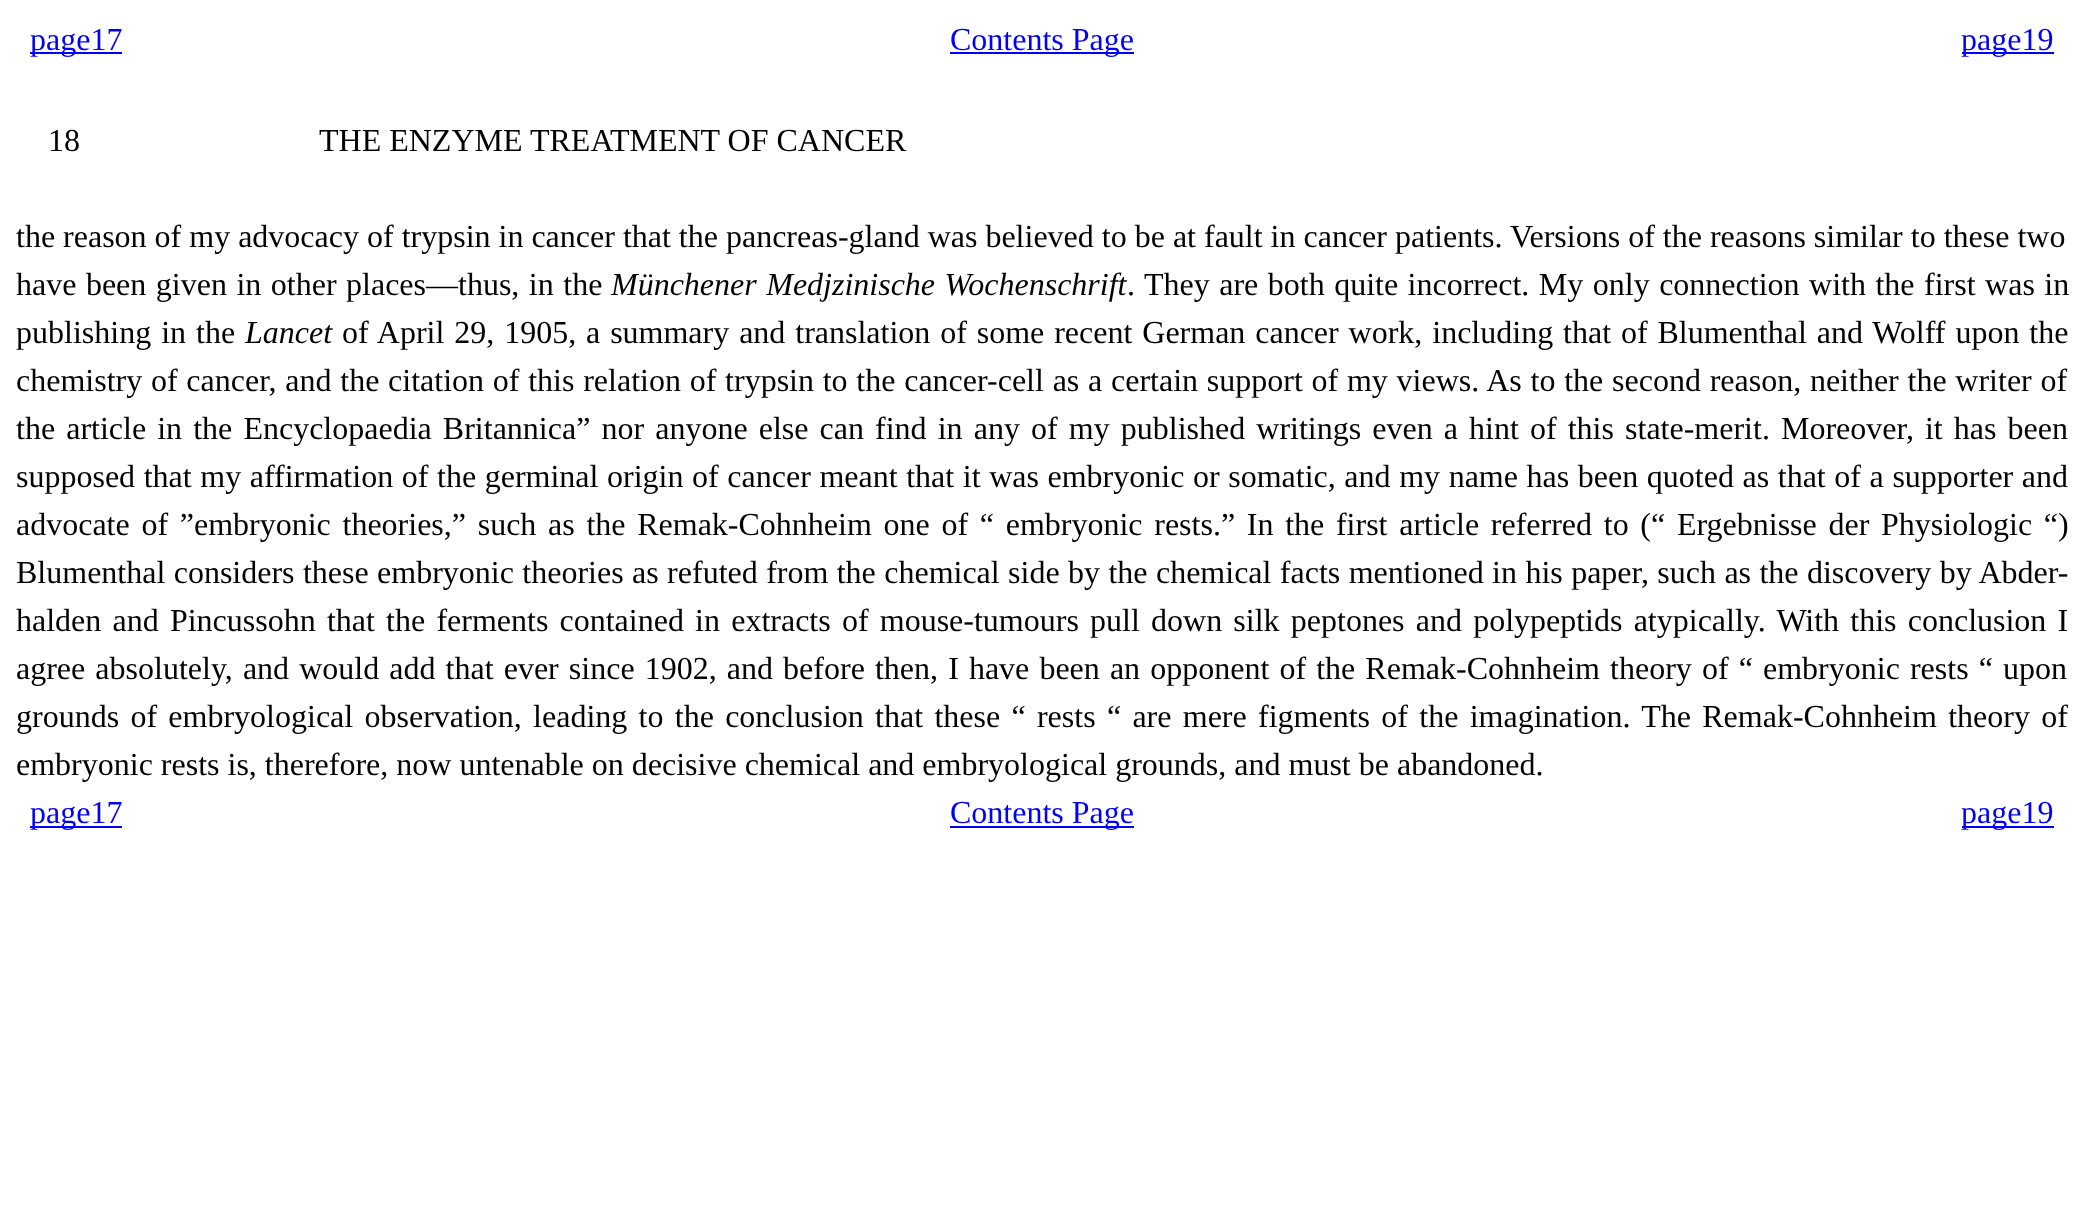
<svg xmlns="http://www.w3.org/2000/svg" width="2083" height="1231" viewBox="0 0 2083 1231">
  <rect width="100%" height="100%" fill="#fff"/>
  <path d="M30 52h92v2H30z" fill="#00f"/>
  <path d="M950 52h184v2H950z" fill="#00f"/>
  <path d="M1962 52h92v2H1962z" fill="#00f"/>
  <path d="M30 826h92v2H30z" fill="#00f"/>
  <path d="M950 826h184v2H950z" fill="#00f"/>
  <path d="M1962 826h92v2H1962z" fill="#00f"/>
  <g font-family="Liberation Serif" font-size="32" fill="#00f">
    <text x="30" y="50">page17</text>
    <text x="950" y="50">Contents Page</text>
    <text x="1961" y="50">page19</text>
  </g>
  <g font-family="Liberation Serif" font-size="32" fill="#000">
    <text x="48" y="151">18</text>
    <text x="319" y="151">THE ENZYME TREATMENT OF CANCER</text>
    <text x="16" y="247">the reason of my advocacy of trypsin in cancer that the pancreas-gland was believed to be at fault in cancer patients. Versions of the reasons similar to these two</text>
    <text x="16" y="295" word-spacing="1.5">have been given in other places—thus, in the</text>
  </g>
  <text x="611" y="295" word-spacing="1.5" font-family="Liberation Serif" font-size="32" font-style="italic" fill="#000">Münchener Medjzinische Wochenschrift</text>
  <g font-family="Liberation Serif" font-size="32" fill="#000">
    <text x="1127" y="295" word-spacing="1.5">. They are both quite incorrect. My only connection with the first was in</text>
    <text x="16" y="343" word-spacing="2">publishing in the</text>
  </g>
  <text x="245" y="343" font-family="Liberation Serif" font-size="32" font-style="italic" fill="#000">Lancet</text>
  <g font-family="Liberation Serif" font-size="32" fill="#000">
    <text x="342" y="343" word-spacing="1.9">of April 29, 1905, a summary and translation of some recent German cancer work, including that of Blumenthal and Wolff upon the</text>
    <text x="16" y="391" word-spacing="0.75">chemistry of cancer, and the citation of this relation of trypsin to the cancer-cell as a certain support of my views. As to the second reason, neither the writer of</text>
    <text x="16" y="439" word-spacing="3.1">the article in the Encyclopaedia Britannica” nor anyone else can find in any of my published writings even a hint of this state-merit. Moreover, it has been</text>
    <text x="16" y="487" word-spacing="0.6">supposed that my affirmation of the germinal origin of cancer meant that it was embryonic or somatic, and my name has been quoted as that of a supporter and</text>
    <text x="16" y="535" word-spacing="3.7">advocate of ”embryonic theories,” such as the Remak-Cohnheim one of “ embryonic rests.” In the first article referred to (“ Ergebnisse der Physiologic “)</text>
    <text x="16" y="583" word-spacing="0.4">Blumenthal considers these embryonic theories as refuted from the chemical side by the chemical facts mentioned in his paper, such as the discovery by Abder-</text>
    <text x="16" y="631" word-spacing="3.2">halden and Pincussohn that the ferments contained in extracts of mouse-tumours pull down silk peptones and polypeptids atypically. With this conclusion I</text>
    <text x="16" y="679" word-spacing="2.1">agree absolutely, and would add that ever since 1902, and before then, I have been an opponent of the Remak-Cohnheim theory of “ embryonic rests “ upon</text>
    <text x="16" y="727" word-spacing="3.3">grounds of embryological observation, leading to the conclusion that these “ rests “ are mere figments of the imagination. The Remak-Cohnheim theory of</text>
    <text x="16" y="775">embryonic rests is, therefore, now untenable on decisive chemical and embryological grounds, and must be abandoned.</text>
  </g>
  <g font-family="Liberation Serif" font-size="32" fill="#00f">
    <text x="30" y="823">page17</text>
    <text x="950" y="823">Contents Page</text>
    <text x="1961" y="823">page19</text>
  </g>
</svg>
